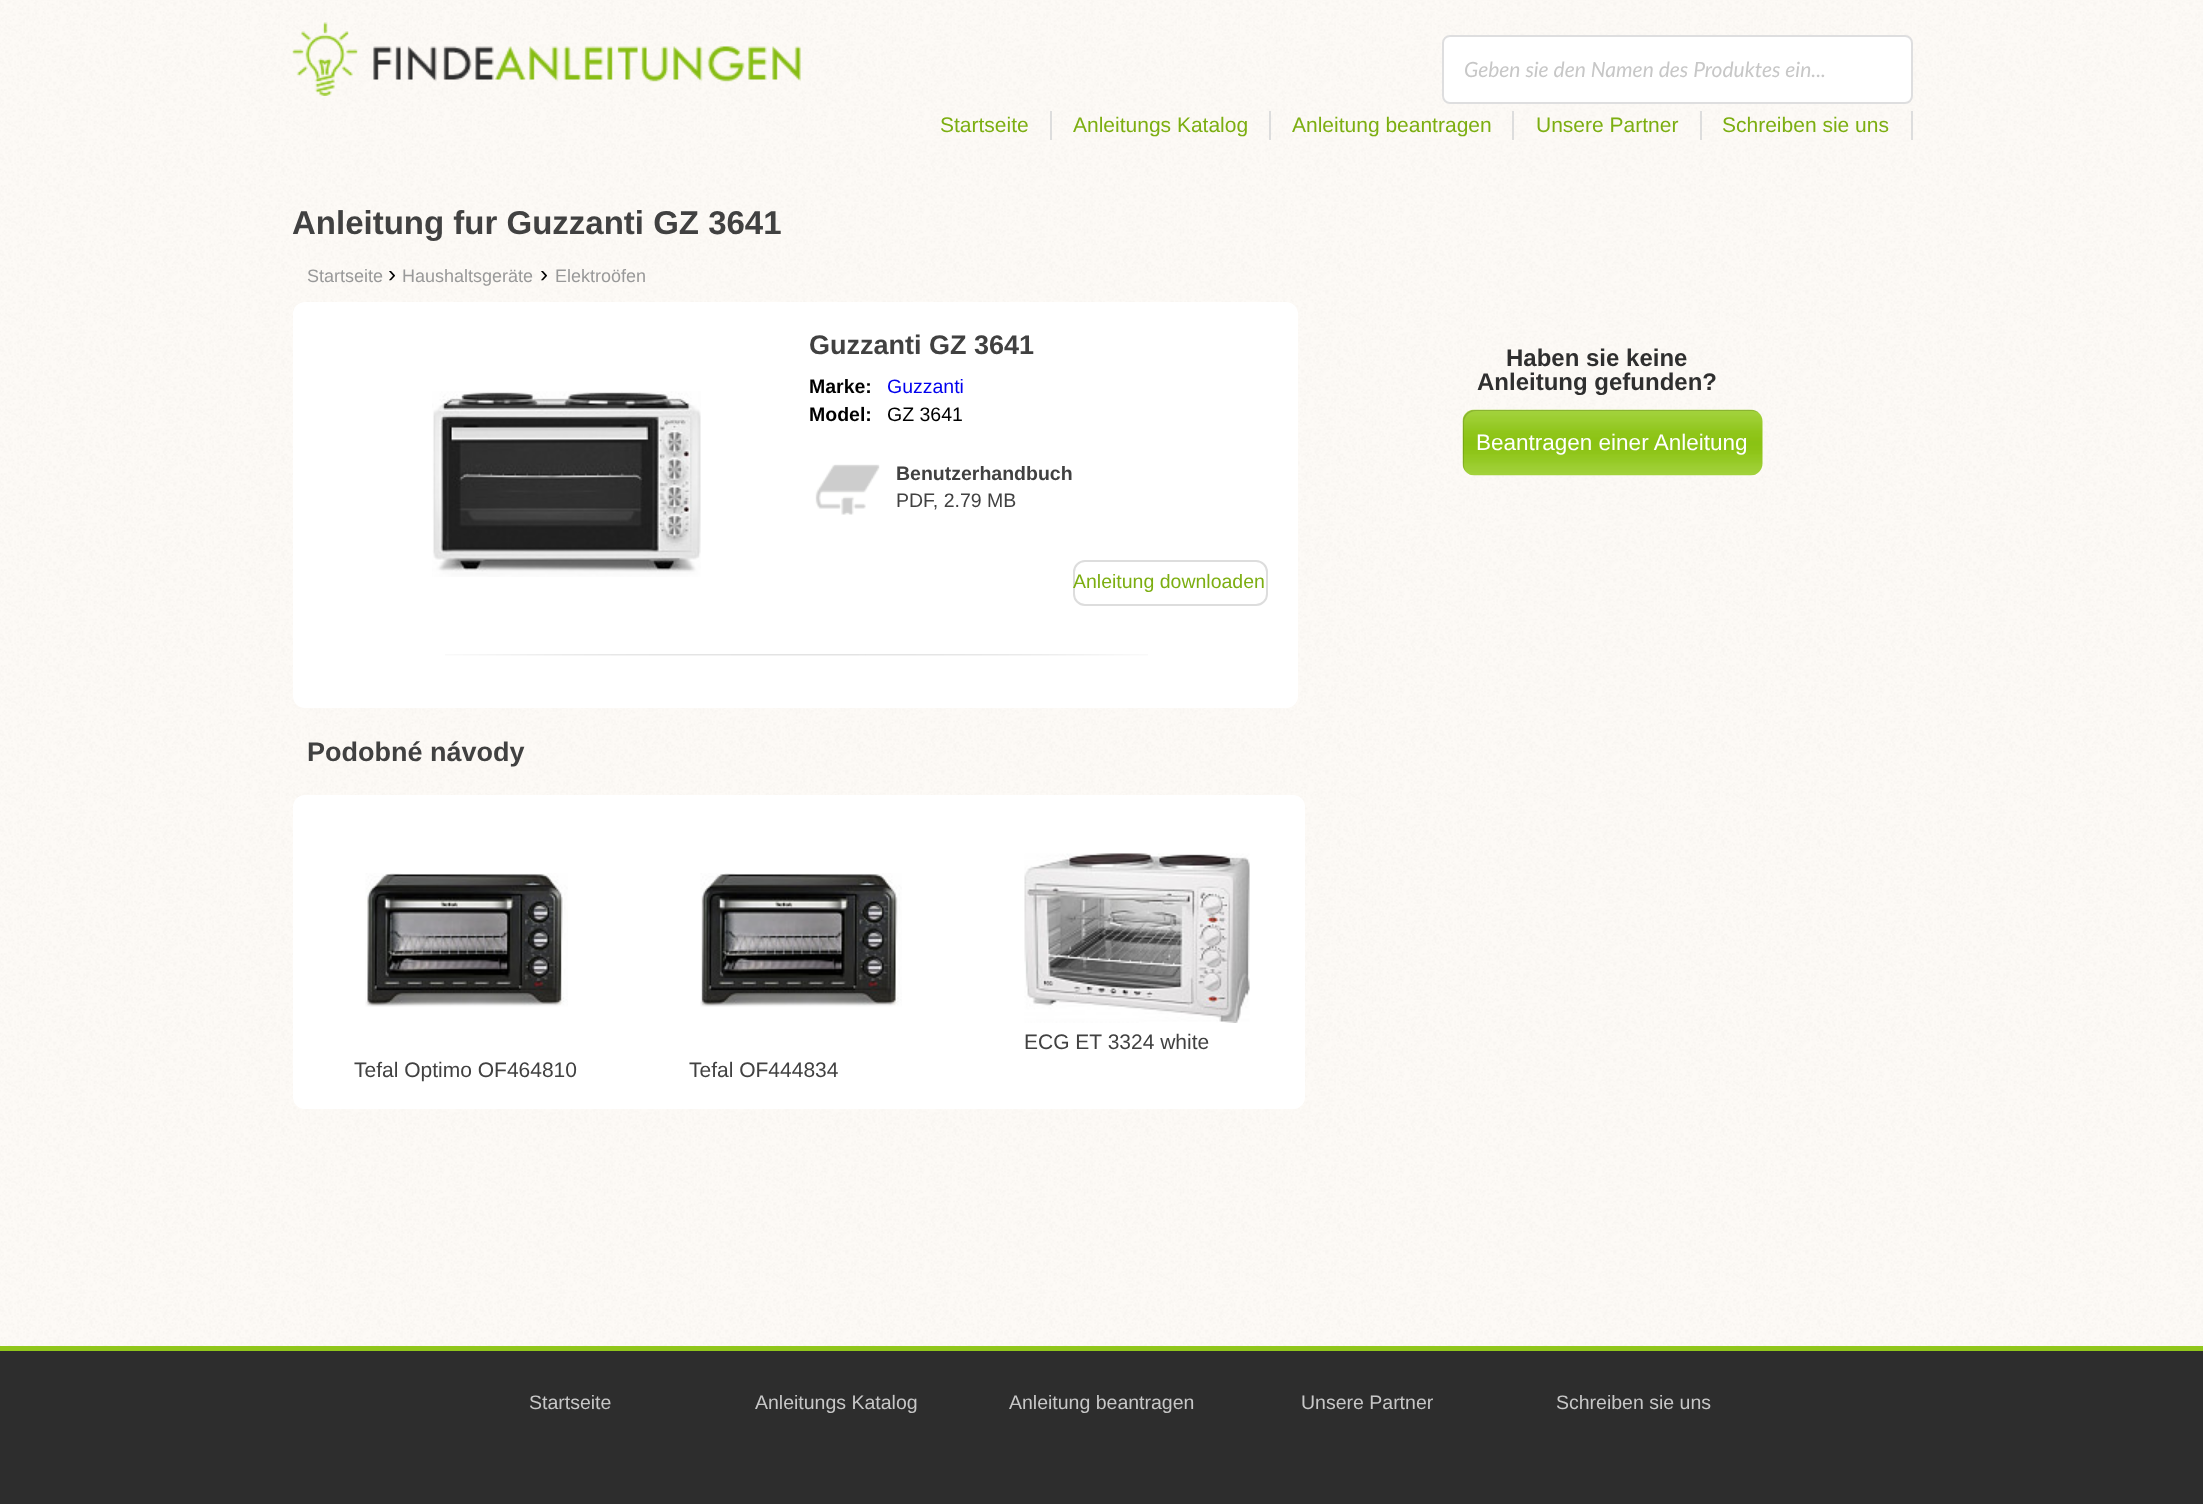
<svg xmlns="http://www.w3.org/2000/svg" width="2203" height="1504" viewBox="0 0 2203 1504">
  <rect width="100%" height="100%" fill="#fff"/>
  <image x="0" y="0" width="2203" height="1346" href="img/1.png"/>
  <image x="292" y="22" width="509" height="74" href="img/2.png"/>
  <rect x="1442" y="35" width="471" height="69" rx="8" fill="#fff"/>
  <rect x="1443" y="36" width="469" height="67" rx="7" fill="none" stroke="#22242626" stroke-width="2"/>
  <path d="M1050 111h2v29H1050z" fill="#ddd"/>
  <path d="M1269 111h2v29H1269z" fill="#ddd"/>
  <path d="M1512 111h2v29H1512z" fill="#ddd"/>
  <path d="M1700 111h2v29H1700z" fill="#ddd"/>
  <path d="M1911 111h2v29H1911z" fill="#ddd"/>
  <rect x="293" y="302" width="1005" height="406" rx="12" fill="#fff"/>
  <image x="445" y="654" width="703" height="2" href="img/3.png"/>
  <image x="432" y="391" width="269" height="186" href="img/4.png"/>
  <image x="815" y="464" width="65" height="51" href="img/5.png"/>
  <rect x="1074" y="561" width="193" height="44" rx="11" fill="none" stroke="#ddd" stroke-width="2"/>
  <rect x="293" y="795" width="1012" height="314" rx="12" fill="#fff"/>
  <image x="1024" y="853" width="226" height="170" href="img/6.png"/>
  <image x="365" y="873" width="203" height="134" href="img/7.png"/>
  <image x="700" y="873" width="202" height="134" href="img/8.png"/>
  <image x="1462" y="409" width="301" height="67" href="img/9.png"/>
  <path d="M1476 411H1752C1755 411 1757 412 1759 413C1757 411 1754 410 1751 410H1475C1468 410 1463 415 1463 422V464C1463 467 1464 470 1466 472C1465 470 1464 468 1464 465V423C1464 416 1469 411 1476 411Z" fill="#00000024"/>
  <path d="M0 1351h2203v153H0z" fill="#2d2d2d"/>
  <path d="M0 1346h2203v5H0z" fill="#90c61b"/>
  <text x="1464" y="77" font-family="Lato" font-size="21" font-style="italic" fill="#c7c7c7">Geben sie den Namen des Produktes ein...</text>
  <g font-family="Liberation Sans" font-size="21" fill="#7cae11">
    <text x="940" y="132">Startseite</text>
    <text x="1073" y="132">Anleitungs Katalog</text>
    <text x="1292" y="132">Anleitung beantragen</text>
    <text x="1536" y="132">Unsere Partner</text>
    <text x="1722" y="132">Schreiben sie uns</text>
  </g>
  <text x="292" y="234" font-family="Liberation Sans" font-size="33" font-weight="bold" fill="#414141">Anleitung fur Guzzanti GZ 3641</text>
  <text x="307" y="282" font-family="Liberation Sans" font-size="18" fill="#999">Startseite</text>
  <text x="388" y="282" font-family="Liberation Sans" font-size="24" fill="#000">›</text>
  <text x="402" y="282" font-family="Liberation Sans" font-size="18" fill="#999">Haushaltsgeräte</text>
  <text x="540" y="282" font-family="Liberation Sans" font-size="24" fill="#000">›</text>
  <text x="555" y="282" font-family="Liberation Sans" font-size="18" fill="#999">Elektroöfen</text>
  <text x="809" y="354" font-family="Liberation Sans" font-size="27" font-weight="bold" fill="#414141">Guzzanti GZ 3641</text>
  <text x="809" y="393" font-family="Liberation Sans" font-size="19.5" font-weight="bold" fill="#000">Marke:</text>
  <text x="887" y="393" font-family="Liberation Sans" font-size="19.5" fill="#00e">Guzzanti</text>
  <text x="809" y="421" font-family="Liberation Sans" font-size="19.5" font-weight="bold" fill="#000">Model:</text>
  <text x="887" y="421" font-family="Liberation Sans" font-size="19.5" fill="#000">GZ 3641</text>
  <text x="896" y="480" font-family="Liberation Sans" font-size="19.5" font-weight="bold" fill="#414141">Benutzerhandbuch</text>
  <text x="896" y="507" font-family="Liberation Sans" font-size="19.5" fill="#414141">PDF, 2.79 MB</text>
  <text x="1073" y="588" font-family="Liberation Sans" font-size="19.5" fill="#7cae11">Anleitung downloaden</text>
  <text x="307" y="761" font-family="Liberation Sans" font-size="27" font-weight="bold" fill="#414141">Podobné návody</text>
  <g font-family="Liberation Sans" font-size="21" fill="#414141">
    <text x="1024" y="1049">ECG ET 3324 white</text>
    <text x="354" y="1077">Tefal Optimo OF464810</text>
    <text x="689" y="1077">Tefal OF444834</text>
  </g>
  <g font-family="Liberation Sans" font-size="24" font-weight="bold" fill="#2f2f2f">
    <text x="1506" y="366">Haben sie keine</text>
    <text x="1477" y="390">Anleitung gefunden?</text>
  </g>
  <text x="1476" y="450" font-family="Liberation Sans" font-size="22.5" fill="#fff">Beantragen einer Anleitung</text>
  <g font-family="Liberation Sans" font-size="19.5" fill="#c7c7c7">
    <text x="529" y="1409">Startseite</text>
    <text x="755" y="1409">Anleitungs Katalog</text>
    <text x="1009" y="1409">Anleitung beantragen</text>
    <text x="1301" y="1409">Unsere Partner</text>
    <text x="1556" y="1409">Schreiben sie uns</text>
  </g>
</svg>
